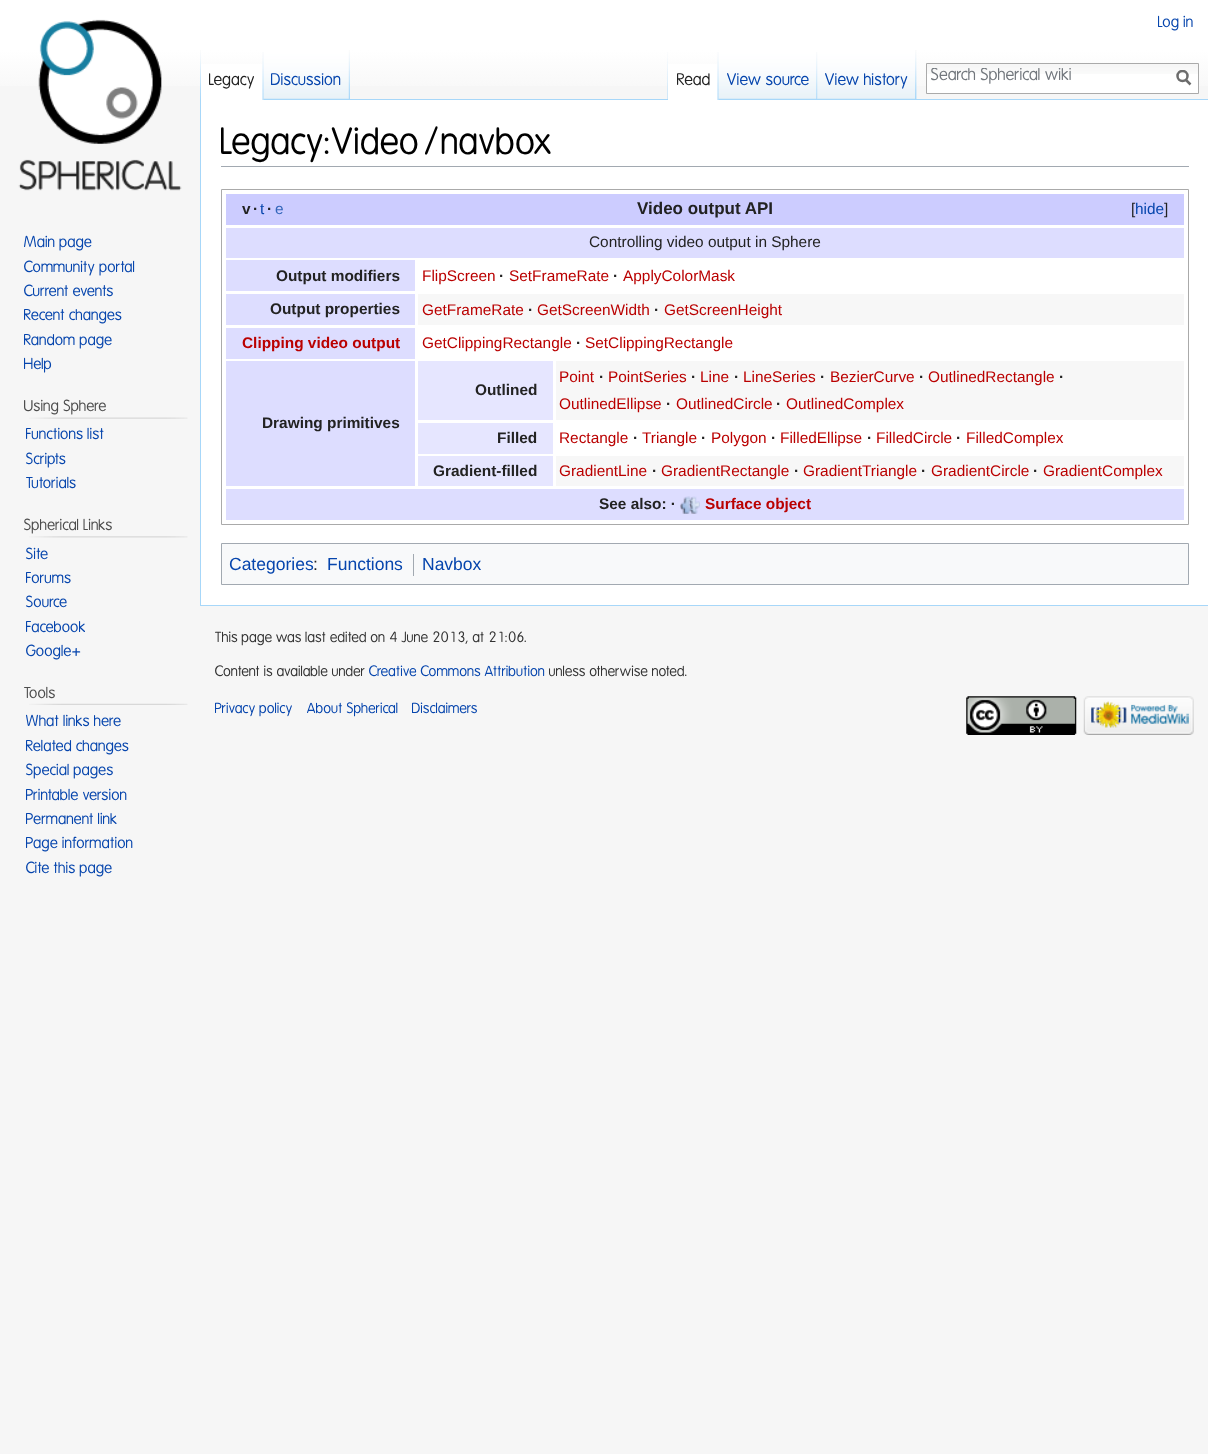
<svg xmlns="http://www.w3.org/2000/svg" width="1208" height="1454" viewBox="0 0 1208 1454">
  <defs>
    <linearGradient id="g1" gradientUnits="userSpaceOnUse" x1="604" y1="0" x2="604" y2="100"><stop offset="0.5" stop-color="#fff"/><stop offset="1" stop-color="#f6f6f6"/></linearGradient>
    <clipPath id="clip1"><path d="M1176 70h15v16H1176z"/></clipPath>
    <clipPath id="clip2"><path d="M931 68h223v16H931z"/></clipPath>
  </defs>
  <rect width="100%" height="100%" fill="#f6f6f6"/>
  <path d="M0 0h1208v86H0z" fill="url(#g1)"/>
  <image x="200" y="50" width="1" height="49" href="img/1.png"/>
  <path d="M201 64h63v36H201z" fill="#fff"/>
  <image x="262" y="52" width="2" height="48" href="img/2.png"/>
  <image x="263" y="50" width="87" height="50" href="img/3.png"/>
  <image x="348" y="50" width="2" height="49" href="img/4.png"/>
  <image x="667" y="52" width="1" height="47" href="img/5.png"/>
  <image x="916" y="50" width="1" height="49" href="img/6.png"/>
  <path d="M350 99h858v1H350z" fill="#a7d7f9"/>
  <path d="M668 64h51v36H668z" fill="#fff"/>
  <image x="717" y="52" width="2" height="48" href="img/2.png"/>
  <image x="718" y="50" width="100" height="50" href="img/7.png"/>
  <image x="816" y="52" width="2" height="48" href="img/8.png"/>
  <image x="817" y="50" width="99" height="50" href="img/9.png"/>
  <image x="915" y="50" width="2" height="49" href="img/10.png"/>
  <path d="M927 74h271v19H927z" fill="#fff"/>
  <image x="927" y="64" width="271" height="10" href="img/11.png"/>
  <path d="M926.5 63.5h272v30H926.5z" fill="none" stroke="#aaa"/>
  <path d="M1190.5 84.5L1185.5 79.5" fill="none" stroke="#6c6c6c" stroke-width="2.5"/>
  <g clip-path="url(#clip1)">
    <circle cx="1182.5" cy="76" r="5" fill="none" stroke="#6c6c6c" stroke-width="2.5"/>
  </g>
  <image x="18" y="19" width="164" height="172" href="img/12.png"/>
  <image x="29" y="417" width="159" height="2" href="img/13.png"/>
  <image x="29" y="536" width="159" height="2" href="img/14.png"/>
  <image x="29" y="703" width="159" height="2" href="img/15.png"/>
  <path d="M201 100h1007v505H201z" fill="#fff"/>
  <path d="M200 605h1008v1H200z" fill="#a7d7f9"/>
  <path d="M200 99h1v507H200z" fill="#a7d7f9"/>
  <path d="M221 166h968v1H221z" fill="#a2a9b1"/>
  <path d="M221.5 189.5h967v335H221.5z" fill="none" stroke="#aaa"/>
  <path d="M226 194h958v31H226z" fill="#ccf"/>
  <path d="M226 228h958v30H226z" fill="#ddf"/>
  <path d="M226 260h189v31H226z" fill="#ddf"/>
  <path d="M226 294h189v31H226z" fill="#ddf"/>
  <path d="M418 294h766v31H418z" fill="#f7f7f7"/>
  <path d="M226 328h189v31H226z" fill="#ddf"/>
  <path d="M226 361h189v125H226z" fill="#ddf"/>
  <path d="M418 361h135v59H418z" fill="#e6e6ff"/>
  <path d="M556 361h628v59H556z" fill="#f7f7f7"/>
  <path d="M418 423h135v31H418z" fill="#e6e6ff"/>
  <path d="M418 456h135v30H418z" fill="#e6e6ff"/>
  <path d="M556 456h628v30H556z" fill="#f7f7f7"/>
  <path d="M226 489h958v31H226z" fill="#ddf"/>
  <image x="680" y="496" width="20" height="18" href="img/16.png"/>
  <path d="M221.5 543.5h967v41H221.5z" fill="#f8f9fa" stroke="#a2a9b1"/>
  <path d="M413 554h1v22H413z" fill="#a2a9b1"/>
  <image x="966" y="696" width="111" height="39" href="img/17.png"/>
  <image x="1083" y="696" width="111" height="39" href="img/18.png"/>
  <text x="1158" y="27" font-family="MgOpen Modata" font-size="15" fill="#0645ad">Log in</text>
  <text x="209" y="85" font-family="MgOpen Modata" font-size="16" fill="#222">Legacy</text>
  <text x="271" y="85" font-family="MgOpen Modata" font-size="16" fill="#0645ad">Discussion</text>
  <text x="677" y="85" font-family="MgOpen Modata" font-size="16" fill="#222">Read</text>
  <g font-family="MgOpen Modata" font-size="16" fill="#0645ad">
    <text x="727" y="85">View source</text>
    <text x="825" y="85">View history</text>
  </g>
  <g clip-path="url(#clip2)">
    <text x="931" y="80" font-family="MgOpen Modata" font-size="16.25" fill="#72777d">Search Spherical wiki</text>
  </g>
  <g font-family="MgOpen Modata" font-size="15" fill="#0645ad">
    <text x="24" y="247">Main page</text>
    <text x="24" y="272">Community portal</text>
    <text x="24" y="296">Current events</text>
    <text x="24" y="320">Recent changes</text>
    <text x="24" y="345">Random page</text>
    <text x="24" y="369">Help</text>
  </g>
  <text x="24" y="411" font-family="MgOpen Modata" font-size="15" fill="#4d4d4d">Using Sphere</text>
  <g font-family="MgOpen Modata" font-size="15" fill="#0645ad">
    <text x="26" y="439">Functions list</text>
    <text x="26" y="464">Scripts</text>
    <text x="26" y="488">Tutorials</text>
  </g>
  <text x="24" y="530" font-family="MgOpen Modata" font-size="15" fill="#4d4d4d">Spherical Links</text>
  <g font-family="MgOpen Modata" font-size="15" fill="#0645ad">
    <text x="26" y="559">Site</text>
    <text x="26" y="583">Forums</text>
    <text x="26" y="607">Source</text>
    <text x="26" y="632">Facebook</text>
    <text x="26" y="656">Google+</text>
  </g>
  <text x="24" y="698" font-family="MgOpen Modata" font-size="15" fill="#4d4d4d">Tools</text>
  <g font-family="MgOpen Modata" font-size="15" fill="#0645ad">
    <text x="26" y="726">What links here</text>
    <text x="26" y="751">Related changes</text>
    <text x="26" y="775">Special pages</text>
    <text x="26" y="800">Printable version</text>
    <text x="26" y="824">Permanent link</text>
    <text x="26" y="848">Page information</text>
    <text x="26" y="873">Cite this page</text>
  </g>
  <text x="221" y="154" font-family="MgOpen Modata" font-size="36" fill="#000">Legacy:Video/navbox</text>
  <g font-family="Liberation Sans" font-size="15.4" font-weight="bold" fill="#222">
    <text x="242" y="214">v</text>
    <text x="253" y="214">·</text>
  </g>
  <text x="260" y="214" font-family="Liberation Sans" font-size="15.4" fill="#0645ad">t</text>
  <text x="267" y="214" font-family="Liberation Sans" font-size="15.4" font-weight="bold" fill="#222">·</text>
  <text x="275" y="214" font-family="Liberation Sans" font-size="15.4" fill="#36b">e</text>
  <text x="637" y="214" font-family="Liberation Sans" font-size="17" font-weight="bold" fill="#222">Video output API</text>
  <text x="1131" y="214" font-family="Liberation Sans" font-size="15.4" fill="#222">[</text>
  <text x="1135" y="214" font-family="Liberation Sans" font-size="15.4" fill="#0645ad">hide</text>
  <g font-family="Liberation Sans" font-size="15.4" fill="#222">
    <text x="1164" y="214">]</text>
    <text x="589" y="247">Controlling video output in Sphere</text>
  </g>
  <text x="276" y="281" font-family="Liberation Sans" font-size="15.4" font-weight="bold" fill="#222">Output modifiers</text>
  <text x="422" y="281" font-family="Liberation Sans" font-size="15.4" fill="#ba0000">FlipScreen</text>
  <text x="499" y="281" font-family="Liberation Sans" font-size="15.4" font-weight="bold" fill="#222">·</text>
  <text x="509" y="281" font-family="Liberation Sans" font-size="15.4" fill="#ba0000">SetFrameRate</text>
  <text x="613" y="281" font-family="Liberation Sans" font-size="15.4" font-weight="bold" fill="#222">·</text>
  <text x="623" y="281" font-family="Liberation Sans" font-size="15.4" fill="#ba0000">ApplyColorMask</text>
  <text x="270" y="314" font-family="Liberation Sans" font-size="15.4" font-weight="bold" fill="#222">Output properties</text>
  <text x="422" y="315" font-family="Liberation Sans" font-size="15.4" fill="#ba0000">GetFrameRate</text>
  <text x="528" y="315" font-family="Liberation Sans" font-size="15.4" font-weight="bold" fill="#222">·</text>
  <text x="537" y="315" font-family="Liberation Sans" font-size="15.4" fill="#ba0000">GetScreenWidth</text>
  <text x="654" y="315" font-family="Liberation Sans" font-size="15.4" font-weight="bold" fill="#222">·</text>
  <text x="664" y="315" font-family="Liberation Sans" font-size="15.4" fill="#ba0000">GetScreenHeight</text>
  <text x="242" y="348" font-family="Liberation Sans" font-size="15.4" font-weight="bold" fill="#ba0000">Clipping video output</text>
  <text x="422" y="348" font-family="Liberation Sans" font-size="15.4" fill="#ba0000">GetClippingRectangle</text>
  <text x="576" y="348" font-family="Liberation Sans" font-size="15.4" font-weight="bold" fill="#222">·</text>
  <text x="585" y="348" font-family="Liberation Sans" font-size="15.4" fill="#ba0000">SetClippingRectangle</text>
  <g font-family="Liberation Sans" font-size="15.4" font-weight="bold" fill="#222">
    <text x="262" y="428">Drawing primitives</text>
    <text x="475" y="395">Outlined</text>
  </g>
  <text x="559" y="382" font-family="Liberation Sans" font-size="15.4" fill="#ba0000">Point</text>
  <text x="599" y="382" font-family="Liberation Sans" font-size="15.4" font-weight="bold" fill="#222">·</text>
  <text x="608" y="382" font-family="Liberation Sans" font-size="15.4" fill="#ba0000">PointSeries</text>
  <text x="691" y="382" font-family="Liberation Sans" font-size="15.4" font-weight="bold" fill="#222">·</text>
  <text x="700" y="382" font-family="Liberation Sans" font-size="15.4" fill="#ba0000">Line</text>
  <text x="734" y="382" font-family="Liberation Sans" font-size="15.4" font-weight="bold" fill="#222">·</text>
  <text x="743" y="382" font-family="Liberation Sans" font-size="15.4" fill="#ba0000">LineSeries</text>
  <text x="820" y="382" font-family="Liberation Sans" font-size="15.4" font-weight="bold" fill="#222">·</text>
  <text x="830" y="382" font-family="Liberation Sans" font-size="15.4" fill="#ba0000">BezierCurve</text>
  <text x="919" y="382" font-family="Liberation Sans" font-size="15.4" font-weight="bold" fill="#222">·</text>
  <text x="928" y="382" font-family="Liberation Sans" font-size="15.4" fill="#ba0000">OutlinedRectangle</text>
  <text x="1059" y="382" font-family="Liberation Sans" font-size="15.4" font-weight="bold" fill="#222">·</text>
  <text x="559" y="409" font-family="Liberation Sans" font-size="15.4" fill="#ba0000">OutlinedEllipse</text>
  <text x="666" y="409" font-family="Liberation Sans" font-size="15.4" font-weight="bold" fill="#222">·</text>
  <text x="676" y="409" font-family="Liberation Sans" font-size="15.4" fill="#ba0000">OutlinedCircle</text>
  <text x="776" y="409" font-family="Liberation Sans" font-size="15.4" font-weight="bold" fill="#222">·</text>
  <text x="786" y="409" font-family="Liberation Sans" font-size="15.4" fill="#ba0000">OutlinedComplex</text>
  <text x="497" y="443" font-family="Liberation Sans" font-size="15.4" font-weight="bold" fill="#222">Filled</text>
  <text x="559" y="443" font-family="Liberation Sans" font-size="15.4" fill="#ba0000">Rectangle</text>
  <text x="633" y="443" font-family="Liberation Sans" font-size="15.4" font-weight="bold" fill="#222">·</text>
  <text x="642" y="443" font-family="Liberation Sans" font-size="15.4" fill="#ba0000">Triangle</text>
  <text x="701" y="443" font-family="Liberation Sans" font-size="15.4" font-weight="bold" fill="#222">·</text>
  <text x="711" y="443" font-family="Liberation Sans" font-size="15.4" fill="#ba0000">Polygon</text>
  <text x="771" y="443" font-family="Liberation Sans" font-size="15.4" font-weight="bold" fill="#222">·</text>
  <text x="780" y="443" font-family="Liberation Sans" font-size="15.4" fill="#ba0000">FilledEllipse</text>
  <text x="867" y="443" font-family="Liberation Sans" font-size="15.4" font-weight="bold" fill="#222">·</text>
  <text x="876" y="443" font-family="Liberation Sans" font-size="15.4" fill="#ba0000">FilledCircle</text>
  <text x="956" y="443" font-family="Liberation Sans" font-size="15.4" font-weight="bold" fill="#222">·</text>
  <text x="966" y="443" font-family="Liberation Sans" font-size="15.4" fill="#ba0000">FilledComplex</text>
  <text x="433" y="476" font-family="Liberation Sans" font-size="15.4" font-weight="bold" fill="#222">Gradient-filled</text>
  <text x="559" y="476" font-family="Liberation Sans" font-size="15.4" fill="#ba0000">GradientLine</text>
  <text x="652" y="476" font-family="Liberation Sans" font-size="15.4" font-weight="bold" fill="#222">·</text>
  <text x="661" y="476" font-family="Liberation Sans" font-size="15.4" fill="#ba0000">GradientRectangle</text>
  <text x="794" y="476" font-family="Liberation Sans" font-size="15.4" font-weight="bold" fill="#222">·</text>
  <text x="803" y="476" font-family="Liberation Sans" font-size="15.4" fill="#ba0000">GradientTriangle</text>
  <text x="921" y="476" font-family="Liberation Sans" font-size="15.4" font-weight="bold" fill="#222">·</text>
  <text x="931" y="476" font-family="Liberation Sans" font-size="15.4" fill="#ba0000">GradientCircle</text>
  <text x="1033" y="476" font-family="Liberation Sans" font-size="15.4" font-weight="bold" fill="#222">·</text>
  <text x="1043" y="476" font-family="Liberation Sans" font-size="15.4" fill="#ba0000">GradientComplex</text>
  <text x="599" y="509" font-family="Liberation Sans" font-size="15.4" font-weight="bold" fill="#222">See also: ·</text>
  <text x="705" y="509" font-family="Liberation Sans" font-size="15.4" font-weight="bold" fill="#ba0000">Surface object</text>
  <text x="229" y="570" font-family="Liberation Sans" font-size="17.5" fill="#0645ad">Categories</text>
  <text x="313" y="570" font-family="Liberation Sans" font-size="17.5" fill="#222">:</text>
  <g font-family="Liberation Sans" font-size="17.5" fill="#0645ad">
    <text x="327" y="570">Functions</text>
    <text x="422" y="570">Navbox</text>
  </g>
  <g font-family="MgOpen Modata" font-size="14" fill="#333">
    <text x="215" y="642">This page was last edited on 4 June 2013, at 21:06.</text>
    <text x="215" y="676">Content is available under</text>
  </g>
  <text x="369" y="676" font-family="MgOpen Modata" font-size="14" fill="#0645ad">Creative Commons Attribution</text>
  <text x="549" y="676" font-family="MgOpen Modata" font-size="14" fill="#333">unless otherwise noted.</text>
  <g font-family="MgOpen Modata" font-size="14" fill="#0645ad">
    <text x="215" y="713">Privacy policy</text>
    <text x="307" y="713">About Spherical</text>
    <text x="412" y="713">Disclaimers</text>
  </g>
</svg>
